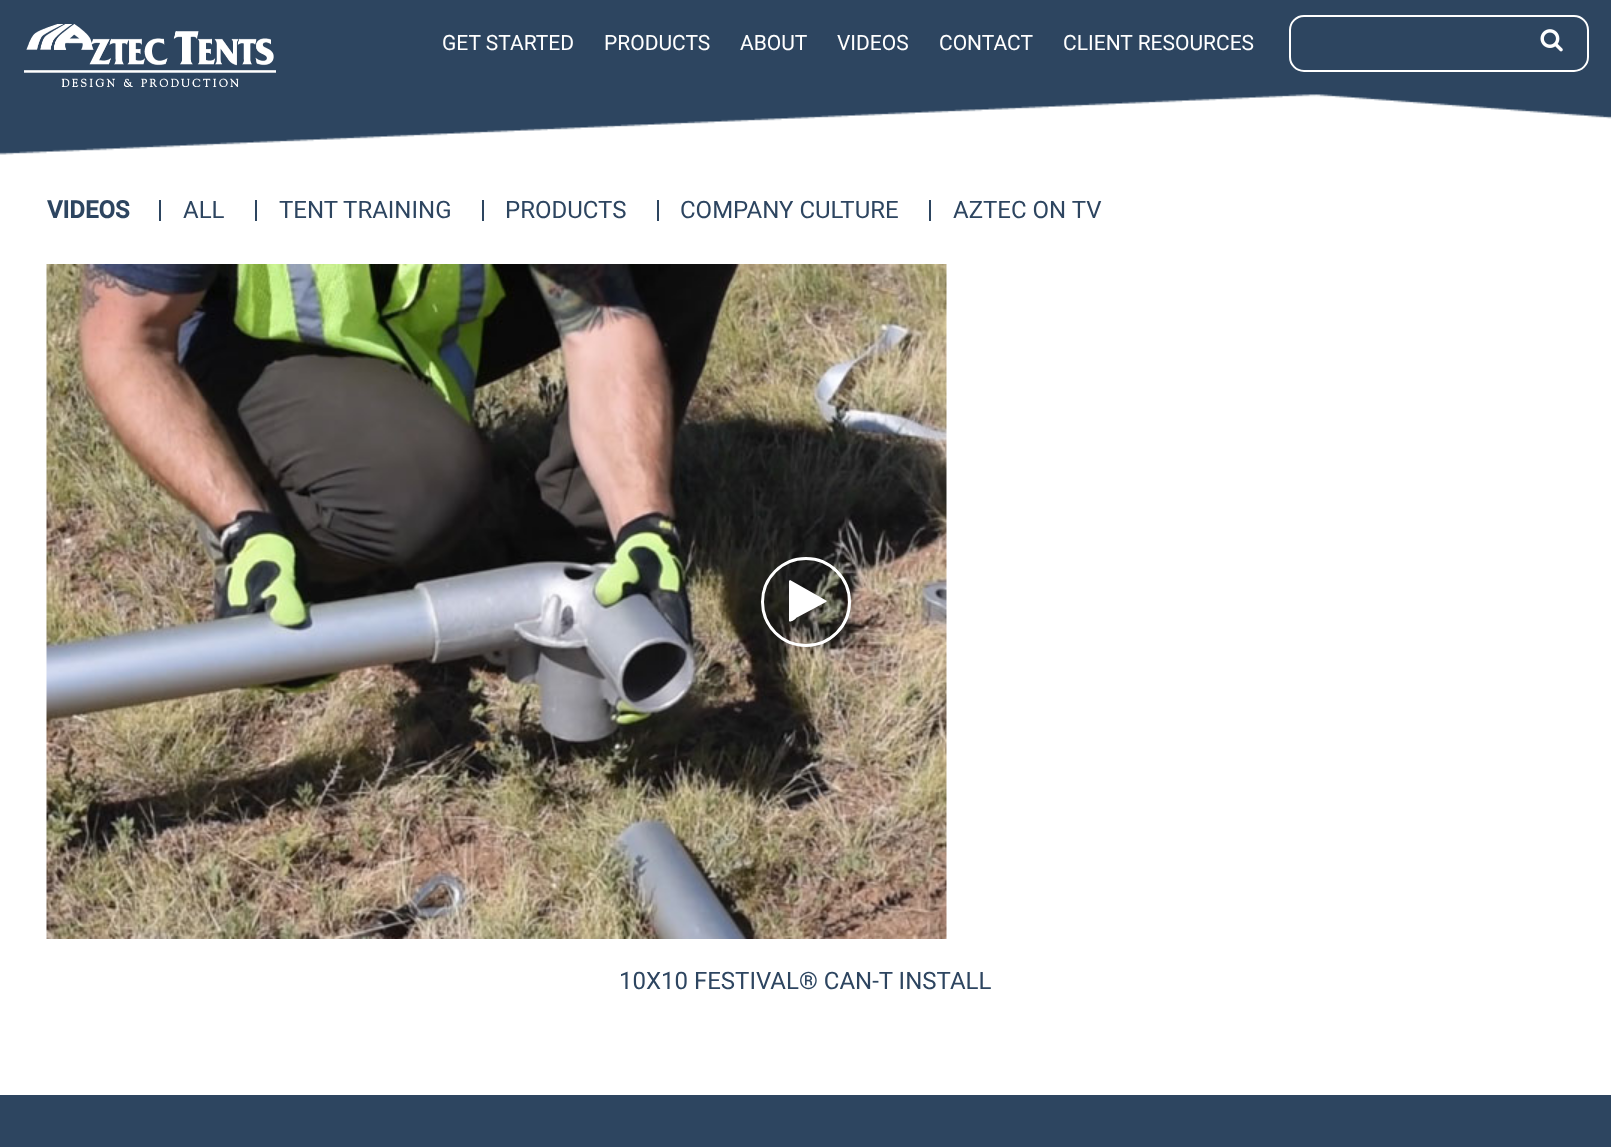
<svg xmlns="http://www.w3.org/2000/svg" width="1611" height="1147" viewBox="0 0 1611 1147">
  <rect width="100%" height="100%" fill="#fff"/>
  <image x="0" y="0" width="1611" height="155" href="img/1.png"/>
  <image x="24" y="24" width="252" height="63" href="img/2.png"/>
  <rect x="1290" y="16" width="298" height="55" rx="14" fill="none" stroke="#fff" stroke-width="2"/>
  <image x="1540" y="29" width="23" height="23" href="img/3.png"/>
  <path d="M159 200h2v21H159z" fill="#2d4560"/>
  <path d="M255 200h2v21H255z" fill="#2d4560"/>
  <path d="M482 200h2v21H482z" fill="#2d4560"/>
  <path d="M657 200h2v21H657z" fill="#2d4560"/>
  <path d="M929 200h2v21H929z" fill="#2d4560"/>
  <image x="46" y="264" width="901" height="675" href="img/4.png"/>
  <circle cx="806" cy="602" r="43.5" fill="none" stroke="#fff" stroke-width="3"/>
  <path d="M826 602L796 618C796 619 790 623 789 621V581L790 580L820 597L827 601Z" fill="#fff"/>
  <path d="M0 1095h1611v52H0z" fill="#2d4560"/>
  <g font-family="Roboto" font-size="21" fill="#fff">
    <text x="442" y="50">GET STARTED</text>
    <text x="604" y="50">PRODUCTS</text>
    <text x="740" y="50">ABOUT</text>
    <text x="837" y="50">VIDEOS</text>
    <text x="939" y="50">CONTACT</text>
    <text x="1063" y="50">CLIENT RESOURCES</text>
  </g>
  <text x="47" y="218" font-family="Roboto" font-size="24" font-weight="bold" fill="#2d4560">VIDEOS</text>
  <g font-family="Roboto" font-size="24" fill="#2d4560">
    <text x="183" y="218">ALL</text>
    <text x="279" y="218">TENT TRAINING</text>
    <text x="505" y="218">PRODUCTS</text>
    <text x="680" y="218">COMPANY CULTURE</text>
    <text x="953" y="218">AZTEC ON TV</text>
    <text x="619" y="989">10X10 FESTIVAL® CAN-T INSTALL</text>
  </g>
</svg>
